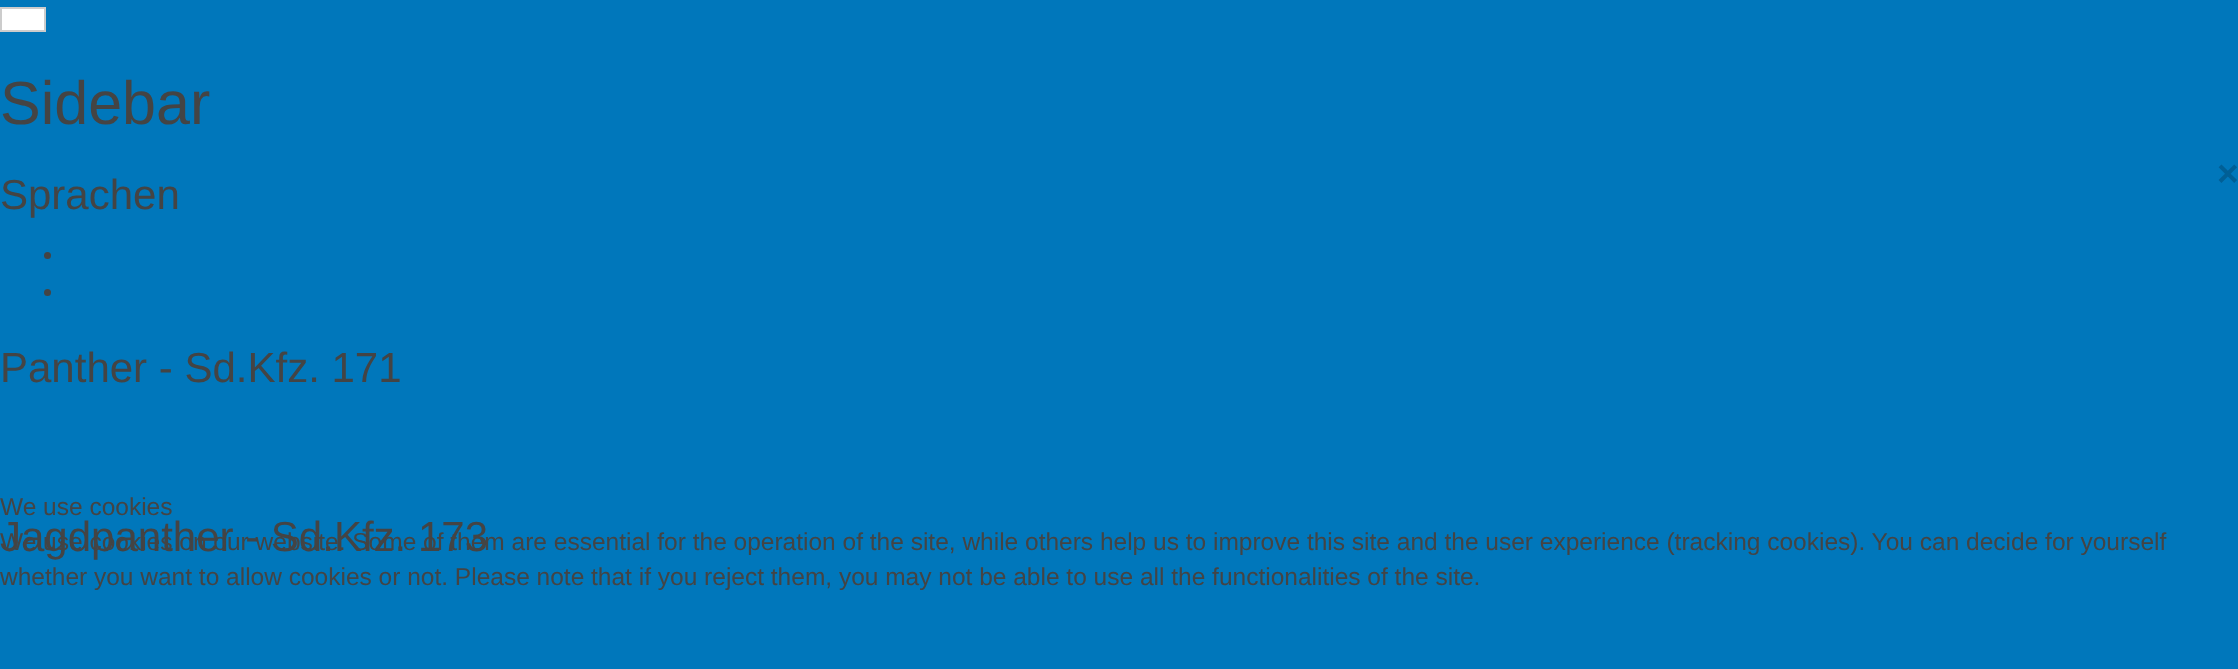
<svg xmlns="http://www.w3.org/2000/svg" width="2238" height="669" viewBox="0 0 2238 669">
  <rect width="100%" height="100%" fill="#07b"/>
  <path d="M1 8h44v23H1z" fill="#fff" stroke="#ccc" stroke-width="2"/>
  <circle cx="47.5" cy="255.5" r="3.5" fill="#444"/>
  <circle cx="47.5" cy="292.5" r="3.5" fill="#444"/>
  <text x="0" y="124" font-family="Liberation Sans" font-size="61" fill="#444">Sidebar</text>
  <text x="2217" y="186" font-family="Liberation Sans" font-size="37" font-weight="bold" fill="#005f96">×</text>
  <g font-family="Liberation Sans" font-size="42" fill="#444">
    <text x="0" y="209">Sprachen</text>
    <text x="0" y="382">Panther - Sd.Kfz. 171</text>
    <text x="0" y="551">Jagdpanther - Sd.Kfz. 173</text>
  </g>
  <g font-family="Liberation Sans" font-size="24.5" fill="#444">
    <text x="0" y="515">We use cookies</text>
    <text x="0" y="550">We use cookies on our website. Some of them are essential for the operation of the site, while others help us to improve this site and the user experience (tracking cookies). You can decide for yourself</text>
    <text x="0" y="585">whether you want to allow cookies or not. Please note that if you reject them, you may not be able to use all the functionalities of the site.</text>
  </g>
</svg>
